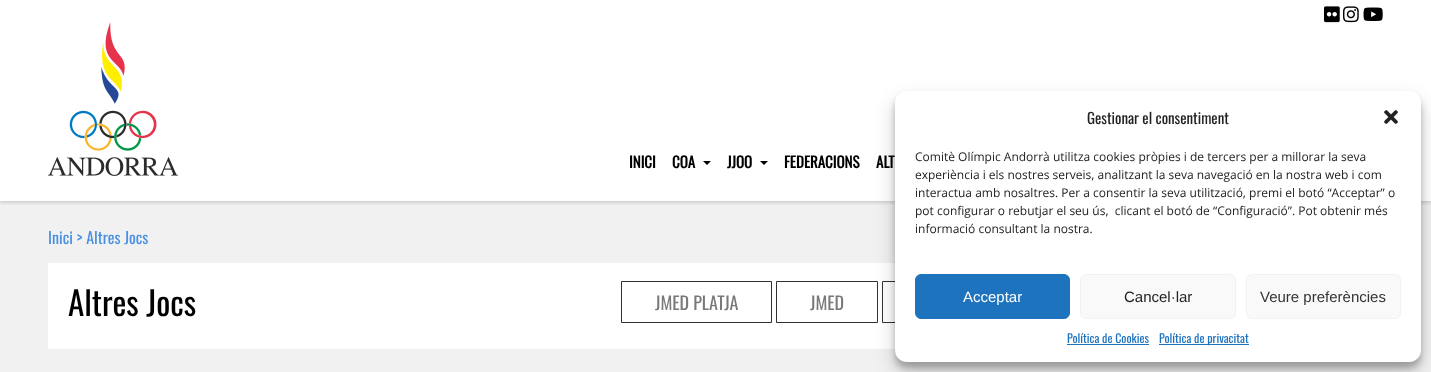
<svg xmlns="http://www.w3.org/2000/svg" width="1431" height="372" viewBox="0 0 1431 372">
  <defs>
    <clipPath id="clip1"><path d="M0 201h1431v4H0z"/></clipPath>
  </defs>
  <rect width="100%" height="100%" fill="#fff"/>
  <path d="M0 201h1431v171H0z" fill="#f1f1f1"/>
  <g clip-path="url(#clip1)">
    <path d="M-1 -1h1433v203H-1z" fill="#00000033" filter="blur(2.5px)"/>
  </g>
  <image x="48" y="22" width="130" height="154" href="img/1.png"/>
  <image x="1324" y="6" width="16" height="17" href="img/2.png"/>
  <image x="1343" y="6" width="16" height="17" href="img/3.png"/>
  <image x="1363" y="7" width="20" height="14" href="img/4.png"/>
  <path d="M703 161H711L707 165Z" fill="#000"/>
  <path d="M760 161H768L764 165Z" fill="#000"/>
  <path d="M48 263h847v86H48z" fill="#fff"/>
  <path d="M621.5 281.5h150v41H621.5z" fill="none" stroke="#313131"/>
  <path d="M776.5 281.5h101v41H776.5z" fill="none" stroke="#313131"/>
  <path d="M882.5 281.5h95v41H882.5z" fill="none" stroke="#313131"/>
  <rect x="895" y="97" width="526" height="271" rx="12" fill="#0000003b" filter="blur(3px)"/>
  <rect x="895" y="101" width="526" height="271" rx="12" fill="#00000030" filter="blur(10px)"/>
  <rect x="895" y="91" width="526" height="271" rx="12" fill="#fff"/>
  <image x="1384" y="110" width="14" height="14" href="img/5.png"/>
  <rect x="915.5" y="274.5" width="154" height="44" rx="5.5" fill="#1e73be" stroke="#1e73be"/>
  <rect x="1080.5" y="274.5" width="155" height="44" rx="5.5" fill="#f9f9f9" stroke="#f2f2f2"/>
  <rect x="1246.5" y="274.5" width="154" height="44" rx="5.5" fill="#f9f9f9" stroke="#f2f2f2"/>
  <path d="M1067 344h82v1H1067z" fill="#1e73be"/>
  <path d="M1159 344h90v1H1159z" fill="#1e73be"/>
  <g font-family="Oswald" font-size="15" font-weight="bold" fill="#000">
    <text x="629" y="168">INICI</text>
    <text x="672" y="168">COA</text>
    <text x="727" y="168">JJOO</text>
    <text x="784" y="168">FEDERACIONS</text>
    <text x="876" y="168">ALT</text>
  </g>
  <text x="48" y="244" font-family="Oswald" font-size="16" fill="#4990e2">Inici &gt; Altres Jocs</text>
  <text x="68" y="316" font-family="Oswald" font-size="33" fill="#000">Altres Jocs</text>
  <g font-family="Oswald" font-size="18" fill="#797979">
    <text x="655" y="310">JMED PLATJA</text>
    <text x="810" y="310">JMED</text>
  </g>
  <text x="1087" y="124" font-family="Oswald" font-size="15" fill="#222">Gestionar el consentiment</text>
  <g font-family="Open Sans" font-size="12" fill="#222">
    <text x="915" y="161">Comitè Olímpic Andorrà utilitza cookies pròpies i de tercers per a millorar la seva</text>
    <text x="915" y="179">experiència i els nostres serveis, analitzant la seva navegació en la nostra web i com</text>
    <text x="915" y="197">interactua amb nosaltres. Per a consentir la seva utilització, premi el botó “Acceptar” o</text>
    <text x="915" y="215" xml:space="preserve">pot configurar o rebutjar el seu ús,  clicant el botó de “Configuració”. Pot obtenir més</text>
    <text x="915" y="233">informació consultant la nostra.</text>
  </g>
  <text x="963" y="302" font-family="Liberation Sans" font-size="15" fill="#fff">Acceptar</text>
  <text x="1124" y="302" font-family="Liberation Sans" font-size="15" fill="#222">Cancel·lar</text>
  <text x="1260" y="302" font-family="Liberation Sans" font-size="15" fill="#333">Veure preferències</text>
  <g font-family="Oswald" font-size="12" fill="#1e73be">
    <text x="1067" y="343">Política de Cookies</text>
    <text x="1159" y="343">Política de privacitat</text>
  </g>
</svg>
